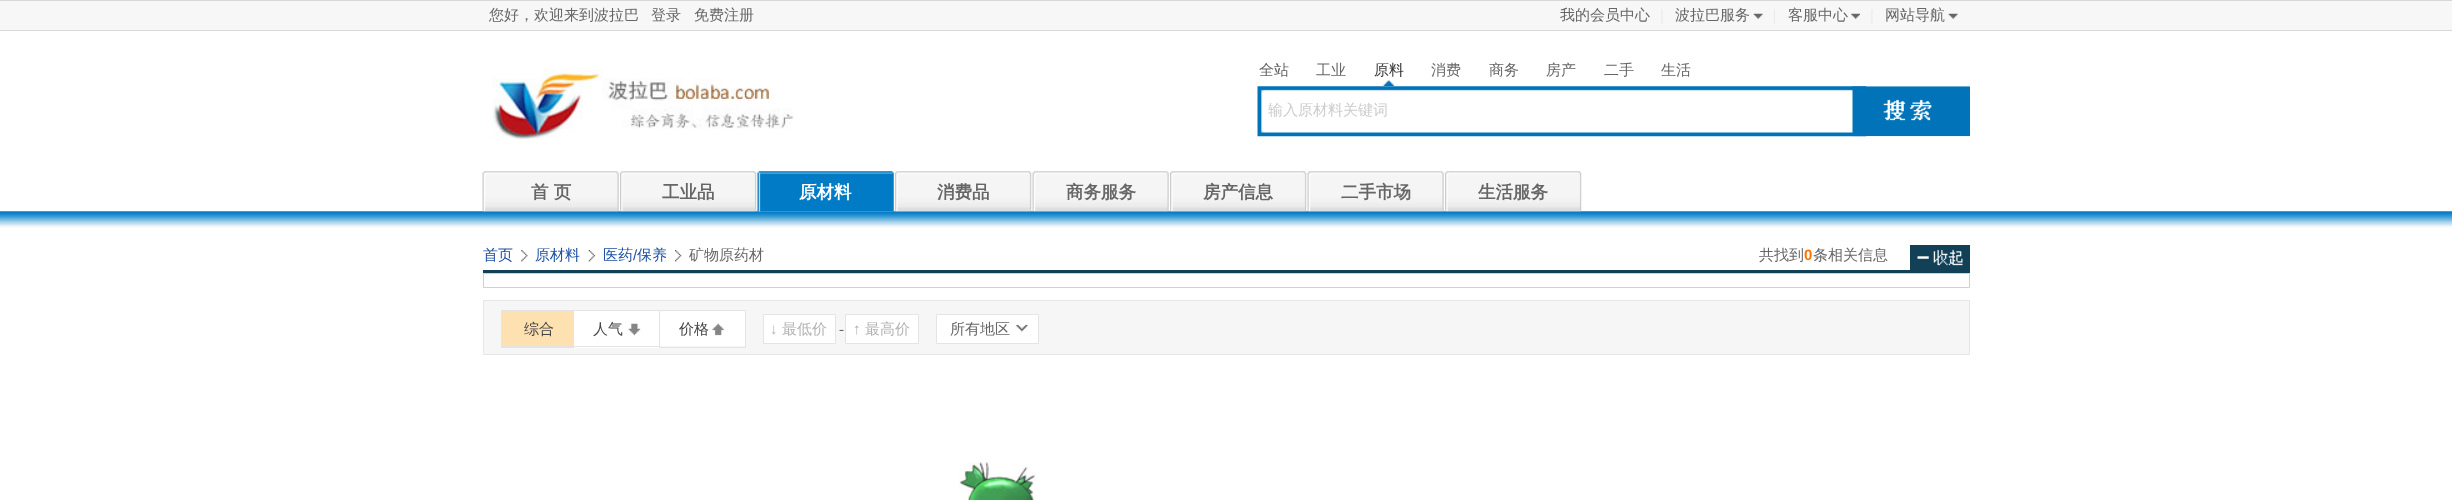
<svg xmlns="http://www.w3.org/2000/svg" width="2452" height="500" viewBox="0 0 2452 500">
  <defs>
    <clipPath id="clip1"><path d="M1268 99h585v22H1268z"/></clipPath>
  </defs>
  <rect width="100%" height="100%" fill="#fff"/>
  <path d="M0 1h2452v29H0z" fill="#f7f7f7"/>
  <path d="M0 0h2452v1H0z" fill="#d8d8d8"/>
  <path d="M0 30h2452v1H0z" fill="#d8d8d8"/>
  <image x="1661" y="9" width="2" height="15" href="img/1.png"/>
  <image x="1774" y="9" width="1" height="15" href="img/2.png"/>
  <image x="1753" y="13" width="10" height="6" href="img/3.png"/>
  <image x="1871" y="9" width="2" height="15" href="img/1.png"/>
  <image x="1851" y="13" width="9" height="6" href="img/4.png"/>
  <image x="1948" y="13" width="10" height="6" href="img/5.png"/>
  <image x="492" y="69" width="302" height="70" href="img/6.png"/>
  <image x="1382" y="80" width="13" height="7" href="img/7.png"/>
  <image x="1257" y="86" width="610" height="51" href="img/8.png"/>
  <image x="1852" y="86" width="118" height="51" href="img/9.png"/>
  <image x="0" y="211" width="2452" height="17" href="img/14.png"/>
  <image x="482" y="171" width="137" height="41" href="img/10.png"/>
  <image x="620" y="171" width="137" height="41" href="img/11.png"/>
  <image x="757" y="171" width="137" height="41" href="img/12.png"/>
  <image x="895" y="171" width="137" height="41" href="img/11.png"/>
  <image x="1032" y="171" width="137" height="41" href="img/10.png"/>
  <image x="1170" y="171" width="137" height="41" href="img/13.png"/>
  <image x="1307" y="171" width="137" height="41" href="img/10.png"/>
  <image x="1445" y="171" width="137" height="41" href="img/11.png"/>
  <image x="521" y="250" width="7" height="12" href="img/15.png"/>
  <image x="588" y="250" width="8" height="12" href="img/16.png"/>
  <image x="675" y="250" width="7" height="12" href="img/17.png"/>
  <image x="1910" y="245" width="60" height="25" href="img/18.png"/>
  <path d="M483 270h1487v3H483z" fill="#124057"/>
  <path d="M483.5 273.5h1486v14H483.5z" fill="none" stroke="#d0d0d0"/>
  <path d="M483.5 300.5h1486v54H483.5z" fill="#f6f6f6" stroke="#e6e6e6"/>
  <path d="M502 311h71v37H502z" fill="#fde1b1"/>
  <path d="M501 310h158v1H501z" fill="#e4e4e4"/>
  <path d="M501 346h72v1H501z" fill="#e4e4e4"/>
  <path d="M501 310h1v38H501z" fill="#e4e4e4"/>
  <path d="M574 311h85v37H574z" fill="#fff"/>
  <image x="628" y="323" width="13" height="13" href="img/19.png"/>
  <path d="M573 346h86v1H573z" fill="#e4e4e4"/>
  <path d="M573 310h1v38H573z" fill="#e4e4e4"/>
  <path d="M659.5 310.5h86v37H659.5z" fill="none" stroke="#e4e4e4"/>
  <path d="M660 311h85v35H660z" fill="#fff"/>
  <image x="712" y="323" width="12" height="13" href="img/20.png"/>
  <path d="M763.5 314.5h72v29H763.5z" fill="#fff" stroke="#e4e4e4"/>
  <path d="M845.5 314.5h73v29H845.5z" fill="#fff" stroke="#e4e4e4"/>
  <path d="M936.5 314.5h102v29H936.5z" fill="#fff" stroke="#e4e4e4"/>
  <image x="1016" y="324" width="12" height="8" href="img/21.png"/>
  <image x="959" y="462" width="77" height="38" href="img/22.png"/>
  <g font-family="WenQuanYi Zen Hei" font-size="15" font-weight="500" fill="#666">
    <text x="489" y="20">您好，欢迎来到波拉巴</text>
    <text x="651" y="20">登录</text>
    <text x="694" y="20">免费注册</text>
    <text x="1560" y="20">我的会员中心</text>
    <text x="1675" y="20">波拉巴服务</text>
    <text x="1788" y="20">客服中心</text>
    <text x="1885" y="20">网站导航</text>
    <text x="1259" y="75">全站</text>
    <text x="1316" y="75">工业</text>
  </g>
  <text x="1374" y="75" font-family="WenQuanYi Zen Hei" font-size="15" font-weight="500" fill="#323232">原料</text>
  <g font-family="WenQuanYi Zen Hei" font-size="15" font-weight="500" fill="#666">
    <text x="1431" y="75">消费</text>
    <text x="1489" y="75">商务</text>
    <text x="1546" y="75">房产</text>
    <text x="1604" y="75">二手</text>
    <text x="1661" y="75">生活</text>
  </g>
  <g clip-path="url(#clip1)">
    <text x="1268" y="115" font-family="WenQuanYi Zen Hei" font-size="15" font-weight="500" fill="#ccc">输入原材料关键词</text>
  </g>
  <g font-family="WenQuanYi Zen Hei" font-size="17.5" font-weight="bold" fill="#666">
    <text x="531" y="198">首 页</text>
    <text x="662" y="198">工业品</text>
  </g>
  <text x="799" y="198" font-family="WenQuanYi Zen Hei" font-size="17.5" font-weight="bold" fill="#fff">原材料</text>
  <g font-family="WenQuanYi Zen Hei" font-size="17.5" font-weight="bold" fill="#666">
    <text x="937" y="198">消费品</text>
    <text x="1066" y="198">商务服务</text>
    <text x="1203" y="198">房产信息</text>
    <text x="1341" y="198">二手市场</text>
    <text x="1478" y="198">生活服务</text>
  </g>
  <g font-family="WenQuanYi Zen Hei" font-size="15" font-weight="500" fill="#1e50a2">
    <text x="483" y="260">首页</text>
    <text x="535" y="260">原材料</text>
    <text x="603" y="260">医药</text>
  </g>
  <text x="633" y="260" font-family="Liberation Sans" font-size="15" fill="#1e50a2">/</text>
  <text x="637" y="260" font-family="WenQuanYi Zen Hei" font-size="15" font-weight="500" fill="#1e50a2">保养</text>
  <g font-family="WenQuanYi Zen Hei" font-size="15" font-weight="500" fill="#666">
    <text x="689" y="260">矿物原药材</text>
    <text x="1759" y="260">共找到</text>
  </g>
  <text x="1804" y="260" font-family="Liberation Sans" font-size="15" font-weight="bold" fill="#ff7300">0</text>
  <text x="1813" y="260" font-family="WenQuanYi Zen Hei" font-size="15" font-weight="500" fill="#666">条相关信息</text>
  <g font-family="WenQuanYi Zen Hei" font-size="15" font-weight="500" fill="#444">
    <text x="524" y="334">综合</text>
    <text x="593" y="334">人气</text>
    <text x="679" y="334">价格</text>
  </g>
  <text x="770" y="334" font-family="Liberation Sans" font-size="15" fill="#b4b3b3">↓</text>
  <text x="782" y="334" font-family="WenQuanYi Zen Hei" font-size="15" font-weight="500" fill="#b4b3b3">最低价</text>
  <text x="839" y="334" font-family="Liberation Serif" font-size="15" fill="#666">-</text>
  <text x="853" y="334" font-family="Liberation Sans" font-size="15" fill="#b4b3b3">↑</text>
  <text x="865" y="334" font-family="WenQuanYi Zen Hei" font-size="15" font-weight="500" fill="#b4b3b3">最高价</text>
  <text x="950" y="334" font-family="WenQuanYi Zen Hei" font-size="15" font-weight="500" fill="#666">所有地区</text>
</svg>
